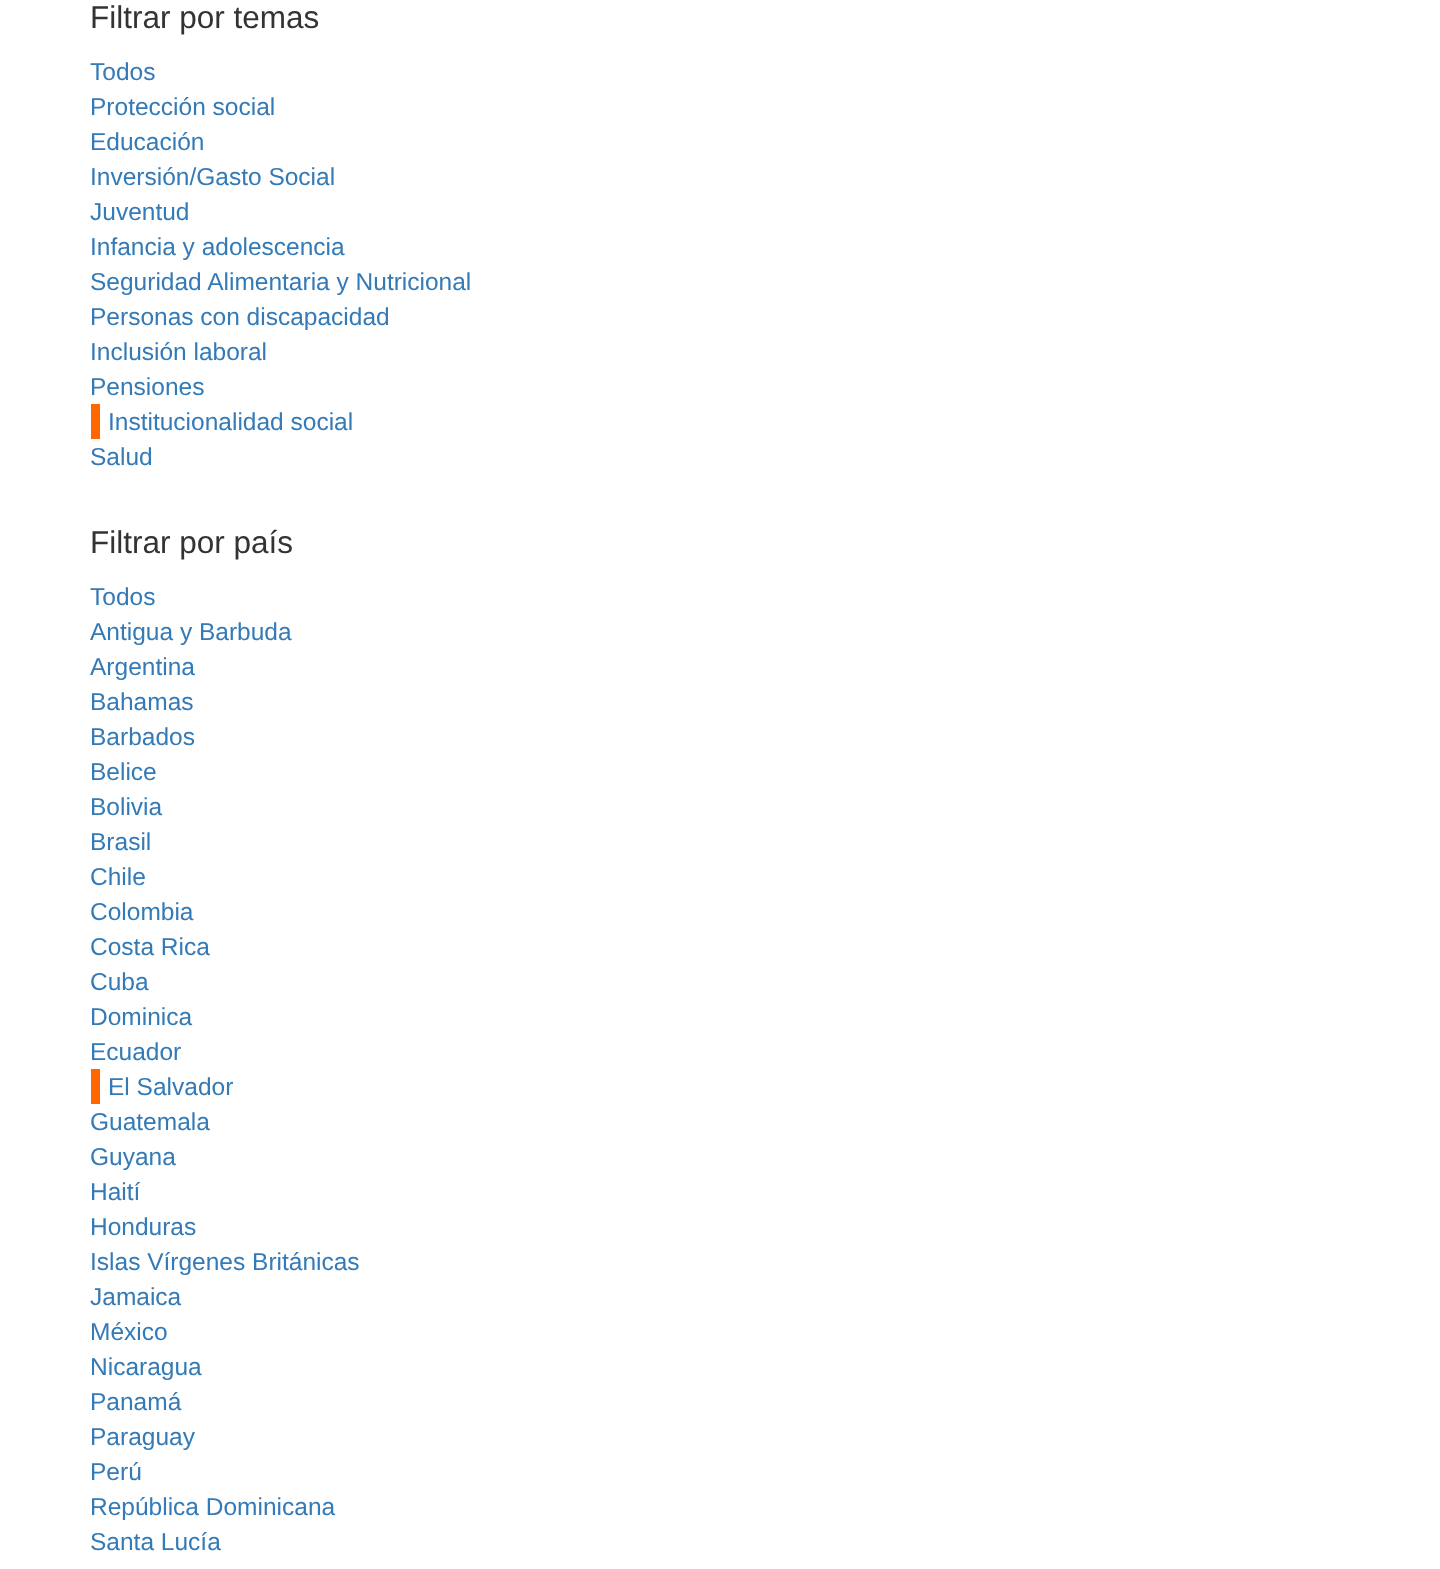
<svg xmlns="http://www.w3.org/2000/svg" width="1440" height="1569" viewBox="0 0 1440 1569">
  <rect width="100%" height="100%" fill="#fff"/>
  <path d="M91 404h9v35H91z" fill="#f60"/>
  <path d="M91 1069h9v35H91z" fill="#f60"/>
  <text x="90" y="28" font-family="Liberation Sans" font-size="31.5" fill="#333">Filtrar por temas</text>
  <g font-family="Liberation Sans" font-size="24.5" fill="#337ab7">
    <text x="90" y="80">Todos</text>
    <text x="90" y="115">Protección social</text>
    <text x="90" y="150">Educación</text>
    <text x="90" y="185">Inversión/Gasto Social</text>
    <text x="90" y="220">Juventud</text>
    <text x="90" y="255">Infancia y adolescencia</text>
    <text x="90" y="290">Seguridad Alimentaria y Nutricional</text>
    <text x="90" y="325">Personas con discapacidad</text>
    <text x="90" y="360">Inclusión laboral</text>
    <text x="90" y="395">Pensiones</text>
    <text x="108" y="430">Institucionalidad social</text>
    <text x="90" y="465">Salud</text>
  </g>
  <text x="90" y="553" font-family="Liberation Sans" font-size="31.5" fill="#333">Filtrar por país</text>
  <g font-family="Liberation Sans" font-size="24.5" fill="#337ab7">
    <text x="90" y="605">Todos</text>
    <text x="90" y="640">Antigua y Barbuda</text>
    <text x="90" y="675">Argentina</text>
    <text x="90" y="710">Bahamas</text>
    <text x="90" y="745">Barbados</text>
    <text x="90" y="780">Belice</text>
    <text x="90" y="815">Bolivia</text>
    <text x="90" y="850">Brasil</text>
    <text x="90" y="885">Chile</text>
    <text x="90" y="920">Colombia</text>
    <text x="90" y="955">Costa Rica</text>
    <text x="90" y="990">Cuba</text>
    <text x="90" y="1025">Dominica</text>
    <text x="90" y="1060">Ecuador</text>
    <text x="108" y="1095">El Salvador</text>
    <text x="90" y="1130">Guatemala</text>
    <text x="90" y="1165">Guyana</text>
    <text x="90" y="1200">Haití</text>
    <text x="90" y="1235">Honduras</text>
    <text x="90" y="1270">Islas Vírgenes Británicas</text>
    <text x="90" y="1305">Jamaica</text>
    <text x="90" y="1340">México</text>
    <text x="90" y="1375">Nicaragua</text>
    <text x="90" y="1410">Panamá</text>
    <text x="90" y="1445">Paraguay</text>
    <text x="90" y="1480">Perú</text>
    <text x="90" y="1515">República Dominicana</text>
    <text x="90" y="1550">Santa Lucía</text>
  </g>
</svg>
